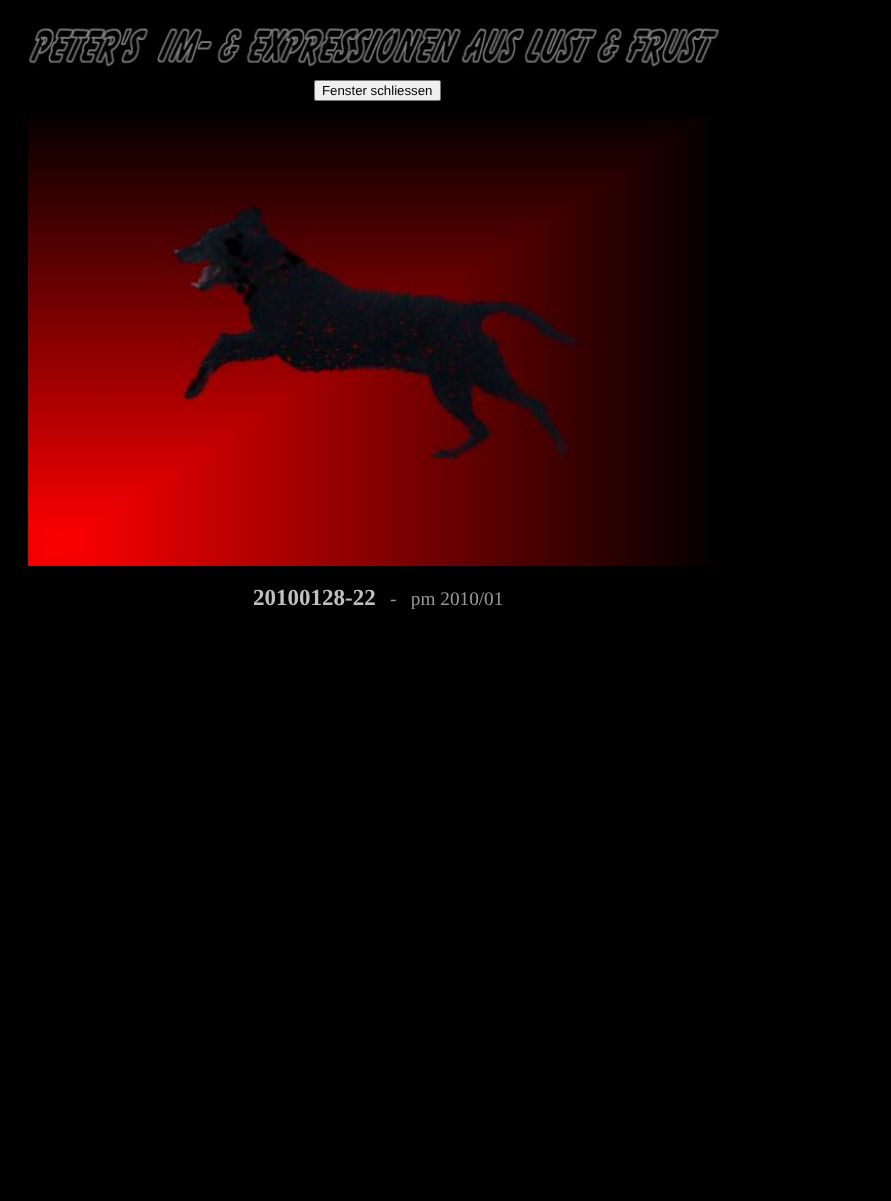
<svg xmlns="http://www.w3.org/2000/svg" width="891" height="1201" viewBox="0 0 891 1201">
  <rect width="100%" height="100%" fill="#000"/>
  <image x="28" y="26" width="692" height="41" href="img/1.png"/>
  <rect x="314.5" y="80.5" width="126" height="20" rx="1.5" fill="#efefef" stroke="#767676"/>
  <image x="28" y="114" width="683" height="452" href="img/2.png"/>
  <text x="322" y="95" font-family="Liberation Sans" font-size="13.25" fill="#000">Fenster schliessen</text>
  <text x="253" y="605" font-family="Liberation Serif" font-size="23" font-weight="bold" fill="#c0c0c0">20100128-22</text>
  <text x="390" y="605" font-family="Liberation Serif" font-size="19.25" fill="#999" xml:space="preserve">-   pm 2010/01</text>
</svg>
